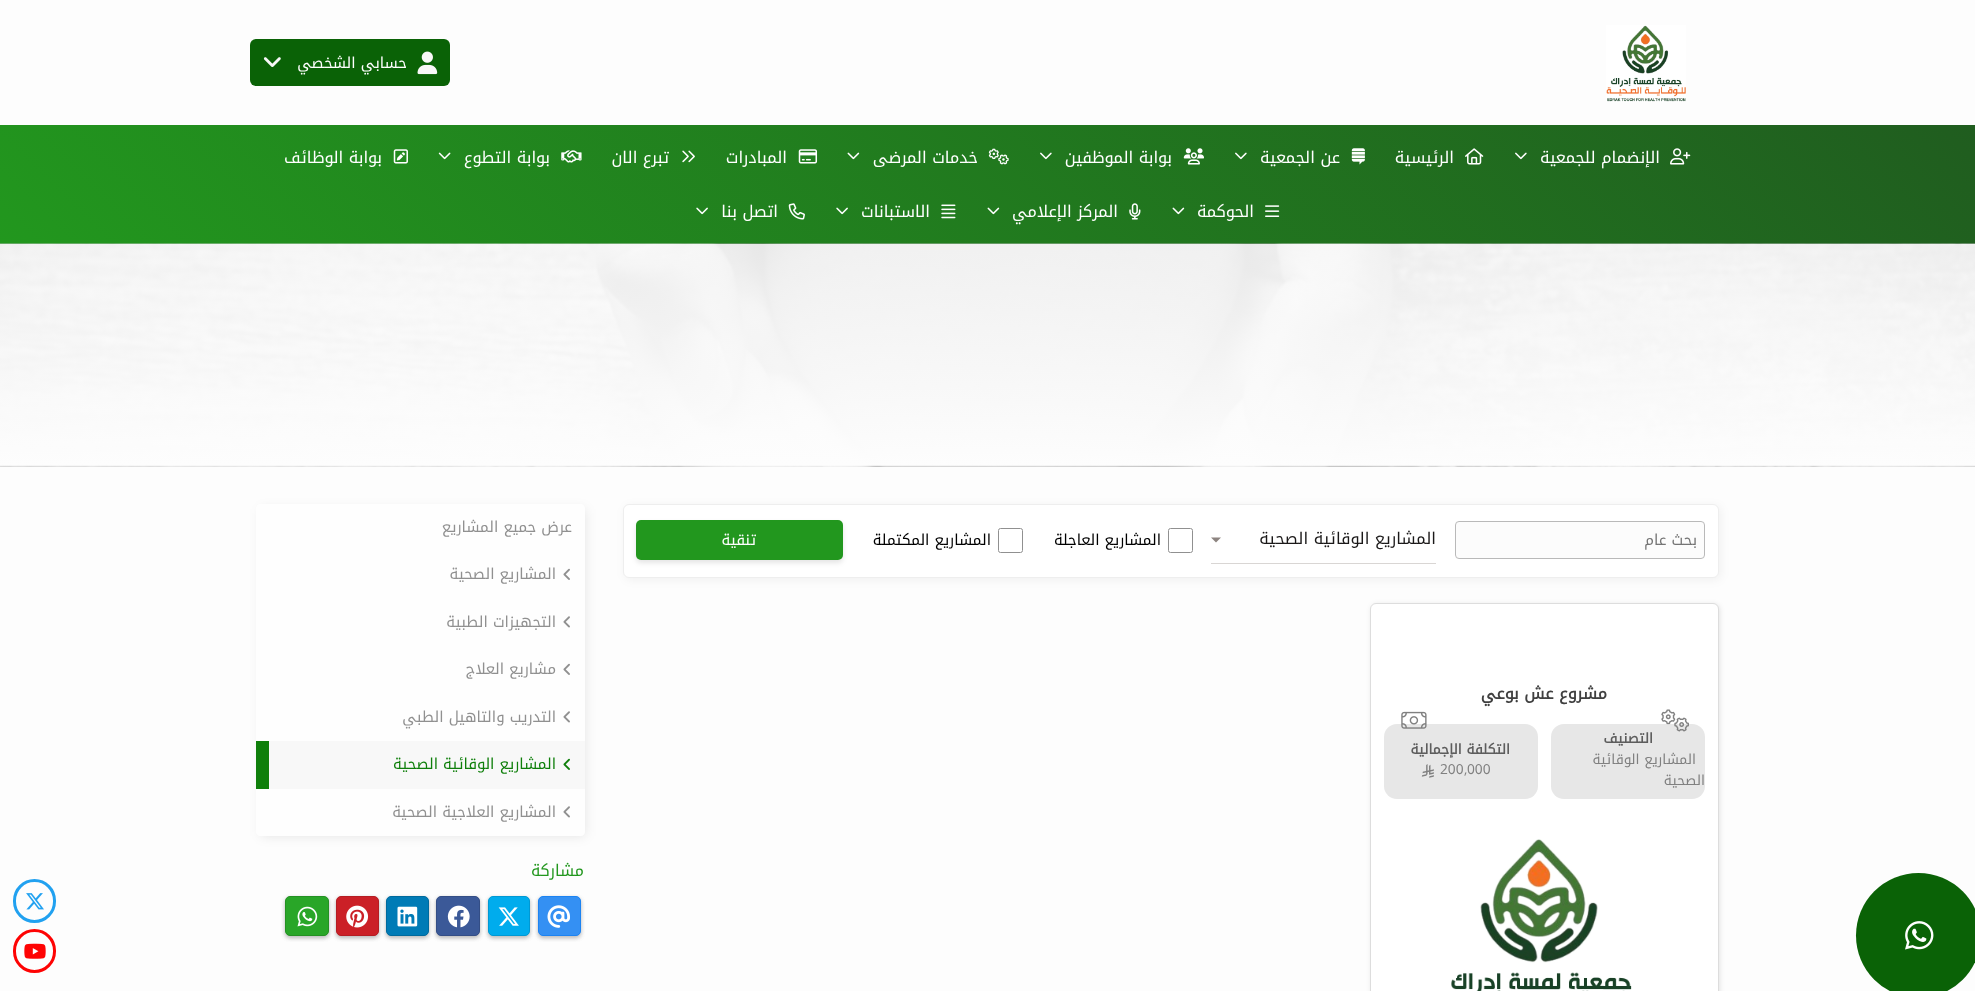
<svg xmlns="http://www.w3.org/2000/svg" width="1975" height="991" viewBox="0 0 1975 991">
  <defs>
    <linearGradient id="g1" gradientUnits="userSpaceOnUse" x1="464" y1="708" x2="1511" y2="-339"><stop offset="0" stop-color="#22971e"/><stop offset="1" stop-color="#205d1f"/></linearGradient>
  </defs>
  <rect width="100%" height="100%" fill="#fdfdfd"/>
  <image x="1606" y="25" width="80" height="77" href="img/1.png"/>
  <rect x="250" y="39" width="200" height="47" rx="6" fill="#0a6206"/>
  <image x="417" y="51" width="21" height="24" href="img/2.png"/>
  <image x="263" y="57" width="18" height="10" href="img/3.png"/>
  <path d="M0 125h1975v119H0z" fill="url(#g1)"/>
  <image x="1670" y="148" width="21" height="17" href="img/4.png"/>
  <image x="1515" y="152" width="12" height="8" href="img/5.png"/>
  <image x="1465" y="148" width="19" height="17" href="img/6.png"/>
  <image x="1351" y="148" width="14" height="17" href="img/7.png"/>
  <image x="1235" y="152" width="12" height="8" href="img/8.png"/>
  <image x="1183" y="148" width="21" height="17" href="img/9.png"/>
  <image x="1040" y="152" width="12" height="8" href="img/10.png"/>
  <image x="988" y="148" width="21" height="17" href="img/11.png"/>
  <image x="847" y="152" width="13" height="8" href="img/12.png"/>
  <image x="798" y="149" width="20" height="15" href="img/13.png"/>
  <image x="682" y="150" width="13" height="13" href="img/14.png"/>
  <image x="561" y="150" width="21" height="13" href="img/15.png"/>
  <image x="438" y="152" width="13" height="8" href="img/16.png"/>
  <image x="393" y="149" width="15" height="15" href="img/17.png"/>
  <image x="1265" y="205" width="15" height="12" href="img/18.png"/>
  <image x="1172" y="207" width="13" height="8" href="img/19.png"/>
  <image x="1129" y="203" width="12" height="17" href="img/20.png"/>
  <image x="987" y="207" width="13" height="8" href="img/21.png"/>
  <image x="941" y="204" width="15" height="15" href="img/22.png"/>
  <image x="836" y="207" width="12" height="8" href="img/23.png"/>
  <image x="788" y="203" width="17" height="17" href="img/24.png"/>
  <image x="696" y="207" width="12" height="8" href="img/25.png"/>
  <image x="0" y="243" width="1975" height="224" href="img/26.png"/>
  <rect x="625" y="506" width="1096" height="74" rx="6" fill="#0000000d" filter="blur(5px)"/>
  <rect x="623.5" y="504.5" width="1095" height="73" rx="5.5" fill="#fff" stroke="#eee"/>
  <rect x="1455.5" y="521.5" width="249" height="37" rx="3.5" fill="#fcfcfc" stroke="#b9b9b9"/>
  <path d="M1211 563h225v1H1211z" fill="#d9d6d4"/>
  <path d="M1211 537.5H1221L1216 542.5Z" fill="#8d8480"/>
  <rect x="1168.5" y="528.5" width="24" height="24" rx="2" fill="none" stroke="#909090"/>
  <rect x="998.5" y="528.5" width="24" height="24" rx="2" fill="none" stroke="#909090"/>
  <rect x="636" y="523" width="207" height="40" rx="5" fill="#0000001a" filter="blur(2.5px)"/>
  <rect x="636" y="520" width="207" height="40" rx="5" fill="#22971e"/>
  <rect x="1371" y="604" width="349" height="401" rx="6" fill="#0000001a" filter="blur(2.5px)"/>
  <rect x="1370.5" y="603.5" width="348" height="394" rx="5.5" fill="#fff" stroke="#ddd"/>
  <rect x="1551" y="724" width="154" height="75" rx="13" fill="#e7e7e7"/>
  <image x="1661" y="709" width="28" height="23" href="img/27.png"/>
  <rect x="1384" y="724" width="154" height="75" rx="13" fill="#e7e7e7"/>
  <image x="1401" y="711" width="26" height="18" href="img/28.png"/>
  <image x="1421" y="764" width="13" height="14" href="img/29.png"/>
  <image x="1451" y="839" width="181" height="152" href="img/30.png"/>
  <rect x="261" y="509" width="324" height="327" rx="1" fill="#0000001a" filter="blur(6px)"/>
  <path d="M260 504H581C583 504 585 506 585 508V551H256V508C256 506 258 504 260 504Z" fill="#fefefe"/>
  <path d="M256 551h329v190H256z" fill="#fefefe"/>
  <image x="563" y="568" width="7" height="12" href="img/31.png"/>
  <image x="563" y="616" width="7" height="12" href="img/32.png"/>
  <image x="563" y="663" width="7" height="12" href="img/31.png"/>
  <image x="563" y="711" width="7" height="12" href="img/32.png"/>
  <path d="M269 741h316v48H269z" fill="#f8f8f8"/>
  <path d="M256 741h13v48H256z" fill="#0f7f0b"/>
  <image x="563" y="758" width="7" height="12" href="img/33.png"/>
  <path d="M256 789H585V832C585 834 583 836 581 836H260C258 836 256 834 256 832Z" fill="#fefefe"/>
  <image x="563" y="806" width="7" height="12" href="img/32.png"/>
  <rect x="538" y="898" width="43" height="40" rx="5" fill="#00000026" filter="blur(2px)"/>
  <rect x="538" y="898" width="43" height="40" rx="5" fill="#00000026" filter="blur(2px)"/>
  <rect x="538.5" y="896.5" width="42" height="39" rx="4.5" fill="#3490f3" stroke="#1c83f2"/>
  <image x="547" y="905" width="23" height="23" href="img/34.png"/>
  <rect x="488" y="898" width="42" height="40" rx="5" fill="#00000026" filter="blur(2px)"/>
  <rect x="488" y="898" width="42" height="40" rx="5" fill="#00000026" filter="blur(2px)"/>
  <rect x="488.5" y="896.5" width="41" height="39" rx="4.5" fill="#00aced" stroke="#0099d4"/>
  <image x="498" y="907" width="21" height="19" href="img/35.png"/>
  <rect x="436" y="898" width="44" height="40" rx="5" fill="#00000026" filter="blur(2px)"/>
  <rect x="436" y="898" width="44" height="40" rx="5" fill="#00000026" filter="blur(2px)"/>
  <rect x="436.5" y="896.5" width="43" height="39" rx="4.5" fill="#3b5998" stroke="#344e86"/>
  <image x="447" y="905" width="23" height="23" href="img/36.png"/>
  <rect x="386" y="898" width="43" height="40" rx="5" fill="#00000026" filter="blur(2px)"/>
  <rect x="386" y="898" width="43" height="40" rx="5" fill="#00000026" filter="blur(2px)"/>
  <rect x="386.5" y="896.5" width="42" height="39" rx="4.5" fill="#007bb6" stroke="#006a9d"/>
  <image x="397" y="906" width="21" height="21" href="img/37.png"/>
  <rect x="336" y="898" width="43" height="40" rx="5" fill="#00000026" filter="blur(2px)"/>
  <rect x="336" y="898" width="43" height="40" rx="5" fill="#00000026" filter="blur(2px)"/>
  <rect x="336.5" y="896.5" width="42" height="39" rx="4.5" fill="#cb2027" stroke="#b51d23"/>
  <image x="346" y="905" width="23" height="23" href="img/38.png"/>
  <rect x="285" y="898" width="44" height="40" rx="5" fill="#00000026" filter="blur(2px)"/>
  <rect x="285" y="898" width="44" height="40" rx="5" fill="#00000026" filter="blur(2px)"/>
  <rect x="285.5" y="896.5" width="43" height="39" rx="4.5" fill="#29a628" stroke="#249123"/>
  <image x="297" y="906" width="21" height="21" href="img/39.png"/>
  <circle cx="1918.5" cy="935.5" r="62.5" fill="#0a6206"/>
  <image x="1905" y="921" width="29" height="29" href="img/40.png"/>
  <rect x="14.5" y="880.5" width="40" height="41" rx="20" fill="none" stroke="#21a1f0" stroke-width="3"/>
  <image x="26" y="893" width="18" height="17" href="img/41.png"/>
  <rect x="14.5" y="930.5" width="40" height="41" rx="20" fill="none" stroke="#fe0303" stroke-width="3"/>
  <image x="24" y="943" width="22" height="16" href="img/42.png"/>
  <text x="407" y="68" font-family="Noto Kufi Arabic" font-size="15" direction="rtl" fill="#fff">حسابي الشخصي</text>
  <g font-family="Noto Kufi Arabic" font-size="16.25" direction="rtl" fill="#fff">
    <text x="1660" y="163">الإنضمام للجمعية</text>
    <text x="1454" y="163">الرئيسية</text>
    <text x="1340" y="163">عن الجمعية</text>
    <text x="1172" y="163">بوابة الموظفين</text>
    <text x="978" y="163">خدمات المرضى</text>
    <text x="787" y="163">المبادرات</text>
    <text x="669" y="163">تبرع الان</text>
    <text x="550" y="163">بوابة التطوع</text>
    <text x="382" y="163">بوابة الوظائف</text>
    <text x="1254" y="217">الحوكمة</text>
    <text x="1118" y="217">المركز الإعلامي</text>
    <text x="930" y="217">الاستبانات</text>
    <text x="778" y="217">اتصل بنا</text>
  </g>
  <text x="1697" y="545" font-family="Noto Kufi Arabic" font-size="15" direction="rtl" fill="#757575">بحث عام</text>
  <text x="1436" y="544" font-family="Noto Kufi Arabic" font-size="16.25" direction="rtl" fill="#1b1919">المشاريع الوقائية الصحية</text>
  <g font-family="Noto Kufi Arabic" font-size="15" direction="rtl" fill="#000">
    <text x="1161" y="545">المشاريع العاجلة</text>
    <text x="991" y="545">المشاريع المكتملة</text>
  </g>
  <text x="756" y="545" font-family="Noto Kufi Arabic" font-size="15" direction="rtl" fill="#fff">تنقية</text>
  <text x="1607" y="699" font-family="Noto Kufi Arabic" font-size="16.25" font-weight="bold" direction="rtl" fill="#404040">مشروع عش بوعي</text>
  <text x="1653" y="743" font-family="Noto Kufi Arabic" font-size="13.75" font-weight="bold" direction="rtl" fill="#5d5d5d">التصنيف</text>
  <g font-family="Noto Kufi Arabic" font-size="13.75" direction="rtl" fill="#808080">
    <text x="1696" y="764">المشاريع الوقائية</text>
    <text x="1705" y="785">الصحية</text>
  </g>
  <text x="1510" y="754" font-family="Noto Kufi Arabic" font-size="13.75" font-weight="bold" direction="rtl" fill="#5d5d5d">التكلفة الإجمالية</text>
  <text x="1467" y="774" font-family="Noto Kufi Arabic" font-size="13.75" fill="#808080">000</text>
  <text x="1464" y="774" font-family="Open Sans" font-size="13.75" fill="#808080">,</text>
  <text x="1440" y="774" font-family="Noto Kufi Arabic" font-size="13.75" fill="#808080">200</text>
  <g font-family="Noto Kufi Arabic" font-size="15" direction="rtl" fill="#909090">
    <text x="572" y="532">عرض جميع المشاريع</text>
    <text x="556" y="579">المشاريع الصحية</text>
    <text x="556" y="627">التجهيزات الطبية</text>
    <text x="556" y="674">مشاريع العلاج</text>
    <text x="556" y="722">التدريب والتاهيل الطبي</text>
  </g>
  <text x="556" y="769" font-family="Noto Kufi Arabic" font-size="15" direction="rtl" fill="#0f7f0b">المشاريع الوقائية الصحية</text>
  <text x="556" y="817" font-family="Noto Kufi Arabic" font-size="15" direction="rtl" fill="#909090">المشاريع العلاجية الصحية</text>
  <text x="584" y="876" font-family="Noto Kufi Arabic" font-size="16" direction="rtl" fill="#22971e">مشاركة</text>
</svg>
